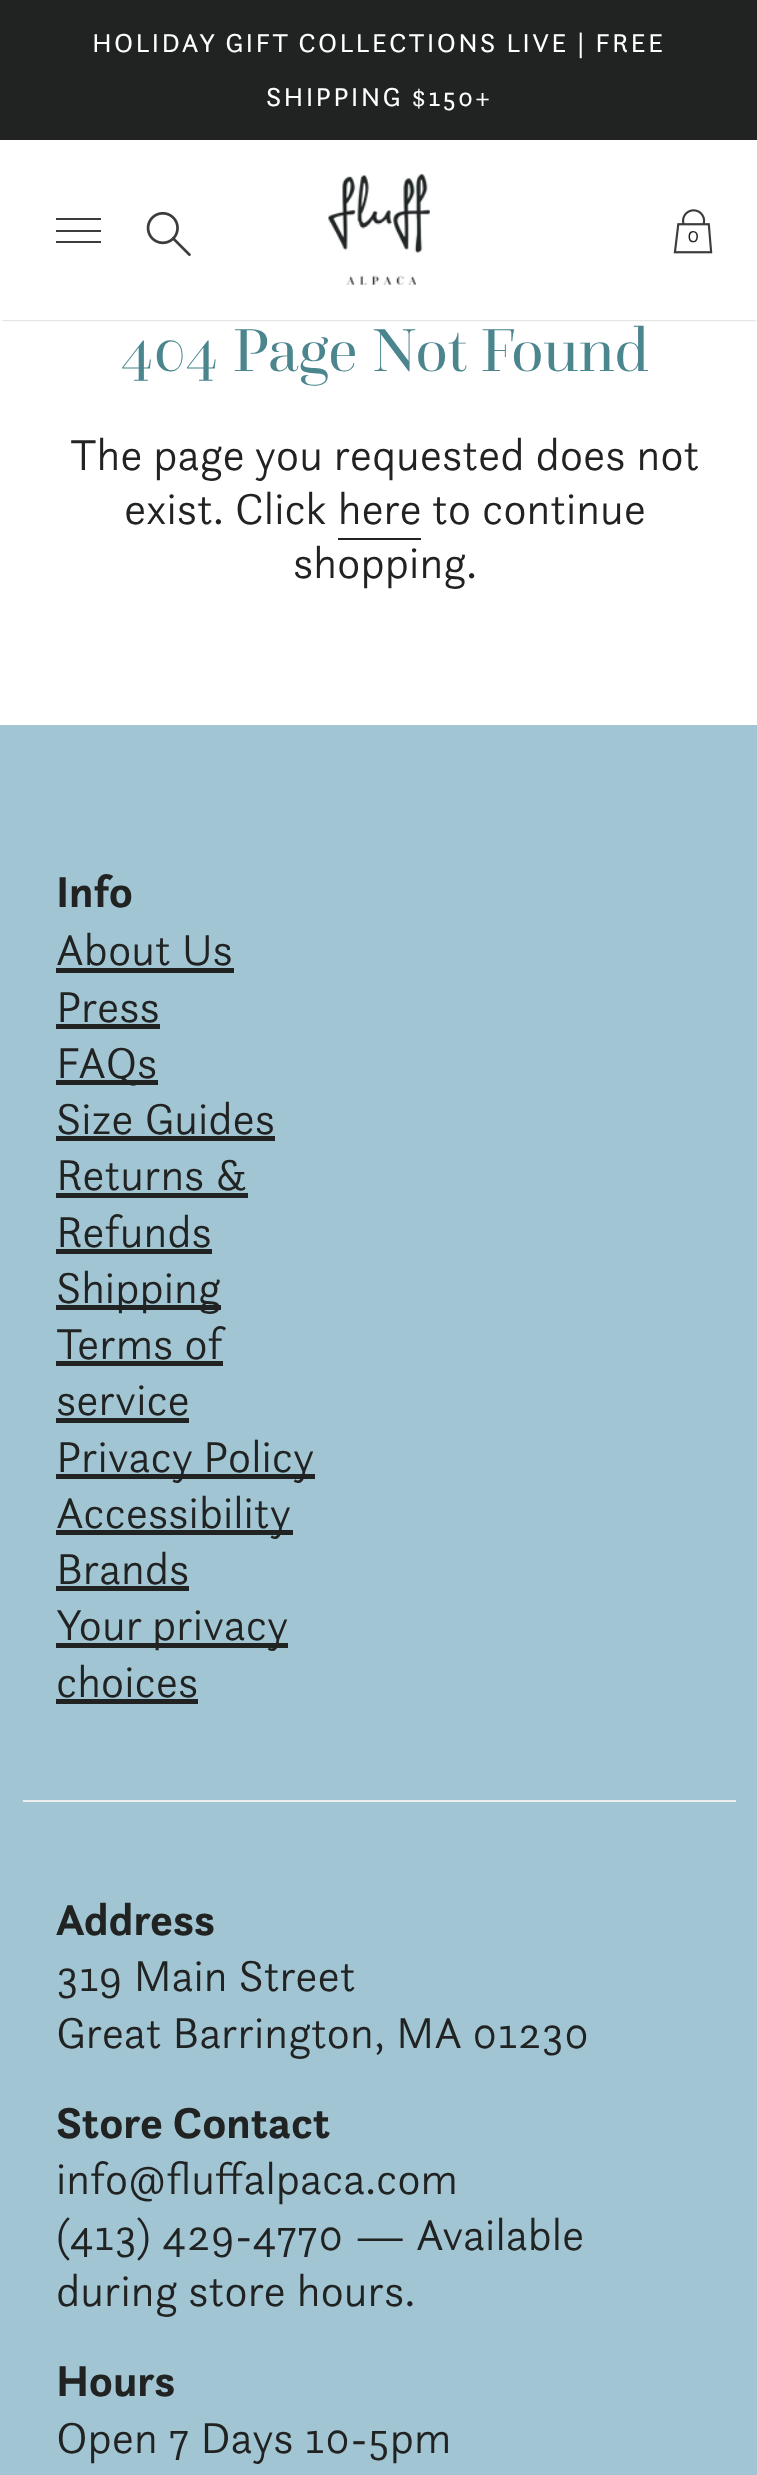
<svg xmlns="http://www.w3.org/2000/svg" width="757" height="2475">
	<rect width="100%" height="100%" fill="#FFFFFF" />
	<rect x="0" y="0" width="757" height="140" fill="#212322" />
	<g font-family="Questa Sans" font-size="27" letter-spacing="2.25" fill="#FFFFFF">
		<text x="92" y="52">HOLIDAY GIFT COLLECTIONS LIVE | FREE</text>
		<text x="266" y="106">SHIPPING $150+</text>
	</g>
	<rect x="2" y="144" width="754" height="176" fill="#000000" fill-opacity="0.3" filter="blur(1px)" />
	<rect x="0" y="142" width="757" height="178" fill="#FFFFFF" />
	<rect x="56" y="218" width="45" height="2" fill="#3A3D3C" />
	<rect x="56" y="230" width="45" height="2" fill="#3A3D3C" />
	<rect x="56" y="241" width="45" height="2" fill="#3A3D3C" />
	<image x="146" y="212" width="45" height="44" href="assets/img1.png" />
	<image x="328" y="174" width="102" height="111" href="assets/img2.png" />
	<image x="673" y="209" width="40" height="45" href="assets/img3.png" />
	<text x="687" y="242" font-family="Questa Sans" font-size="22" font-weight="300" fill="#212322">0</text>
	<text x="121" y="371" font-family="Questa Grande" font-size="63" fill="#4B858E">404 Page Not Found</text>
	<g font-family="Questa Sans" font-size="45" font-weight="300" fill="#212322">
		<text x="70" y="470">The page you requested does not</text>
		<text x="124" y="524">exist. Click here</text>
		<text x="432" y="524">to continue</text>
	</g>
	<rect x="338" y="538" width="83" height="2" fill="#212322" />
	<text x="293" y="578" font-family="Questa Sans" font-size="45" font-weight="300" fill="#212322">shopping.</text>
	<rect x="0" y="725" width="757" height="1750" fill="#A2C5D3" />
	<text x="56" y="907" font-family="Questa Sans" font-size="45" font-weight="700" fill="#212322">Info</text>
	<text x="56" y="965" font-family="Questa Sans" font-size="45" font-weight="300" fill="#212322">About Us</text>
	<rect x="56" y="968" width="178" height="5" fill="#212322" />
	<text x="56" y="1022" font-family="Questa Sans" font-size="45" font-weight="300" fill="#212322">Press</text>
	<rect x="56" y="1024" width="104" height="5" fill="#212322" />
	<rect x="56" y="1080" width="102" height="5" fill="#212322" />
	<g font-family="Questa Sans" font-size="45" font-weight="300" fill="#212322">
		<text x="56" y="1078">FAQs</text>
		<text x="56" y="1134">Size Guides</text>
	</g>
	<rect x="56" y="1136" width="219" height="5" fill="#212322" />
	<text x="56" y="1190" font-family="Questa Sans" font-size="45" font-weight="300" fill="#212322">Returns &amp;</text>
	<rect x="56" y="1193" width="192" height="5" fill="#212322" />
	<text x="56" y="1247" font-family="Questa Sans" font-size="45" font-weight="300" fill="#212322">Refunds</text>
	<rect x="56" y="1249" width="156" height="5" fill="#212322" />
	<rect x="56" y="1305" width="165" height="5" fill="#212322" />
	<g font-family="Questa Sans" font-size="45" font-weight="300" fill="#212322">
		<text x="56" y="1303">Shipping</text>
		<text x="56" y="1359">Terms of</text>
	</g>
	<rect x="56" y="1361" width="167" height="5" fill="#212322" />
	<text x="56" y="1415" font-family="Questa Sans" font-size="45" font-weight="300" fill="#212322">service</text>
	<rect x="56" y="1418" width="133" height="5" fill="#212322" />
	<rect x="56" y="1474" width="259" height="5" fill="#212322" />
	<text x="56" y="1472" font-family="Questa Sans" font-size="45" font-weight="300" fill="#212322">Privacy Policy</text>
	<rect x="56" y="1530" width="237" height="5" fill="#212322" />
	<g font-family="Questa Sans" font-size="45" font-weight="300" fill="#212322">
		<text x="56" y="1528">Accessibility</text>
		<text x="56" y="1584">Brands</text>
	</g>
	<rect x="56" y="1586" width="133" height="5" fill="#212322" />
	<rect x="56" y="1643" width="232" height="5" fill="#212322" />
	<g font-family="Questa Sans" font-size="45" font-weight="300" fill="#212322">
		<text x="56" y="1640">Your privacy</text>
		<text x="56" y="1697">choices</text>
	</g>
	<rect x="56" y="1699" width="142" height="5" fill="#212322" />
	<rect x="23" y="1800" width="713" height="2" fill="#EEEEEE" />
	<text x="56" y="1935" font-family="Questa Sans" font-size="45" font-weight="700" fill="#212322">Address</text>
	<g font-family="Questa Sans" font-size="45" font-weight="300" fill="#212322">
		<text x="56" y="1991">319 Main Street</text>
		<text x="56" y="2048">Great Barrington, MA 01230</text>
	</g>
	<text x="56" y="2138" font-family="Questa Sans" font-size="45" font-weight="700" fill="#212322">Store Contact</text>
	<g font-family="Questa Sans" font-size="45" font-weight="300" fill="#212322">
		<text x="56" y="2194">info@fluffalpaca.com</text>
		<text x="56" y="2250">(413) 429-4770 — Available</text>
		<text x="56" y="2306">during store hours.</text>
	</g>
	<text x="56" y="2396" font-family="Questa Sans" font-size="45" font-weight="700" fill="#212322">Hours</text>
	<text x="56" y="2453" font-family="Questa Sans" font-size="45" font-weight="300" fill="#212322">Open 7 Days 10-5pm</text>
</svg>
